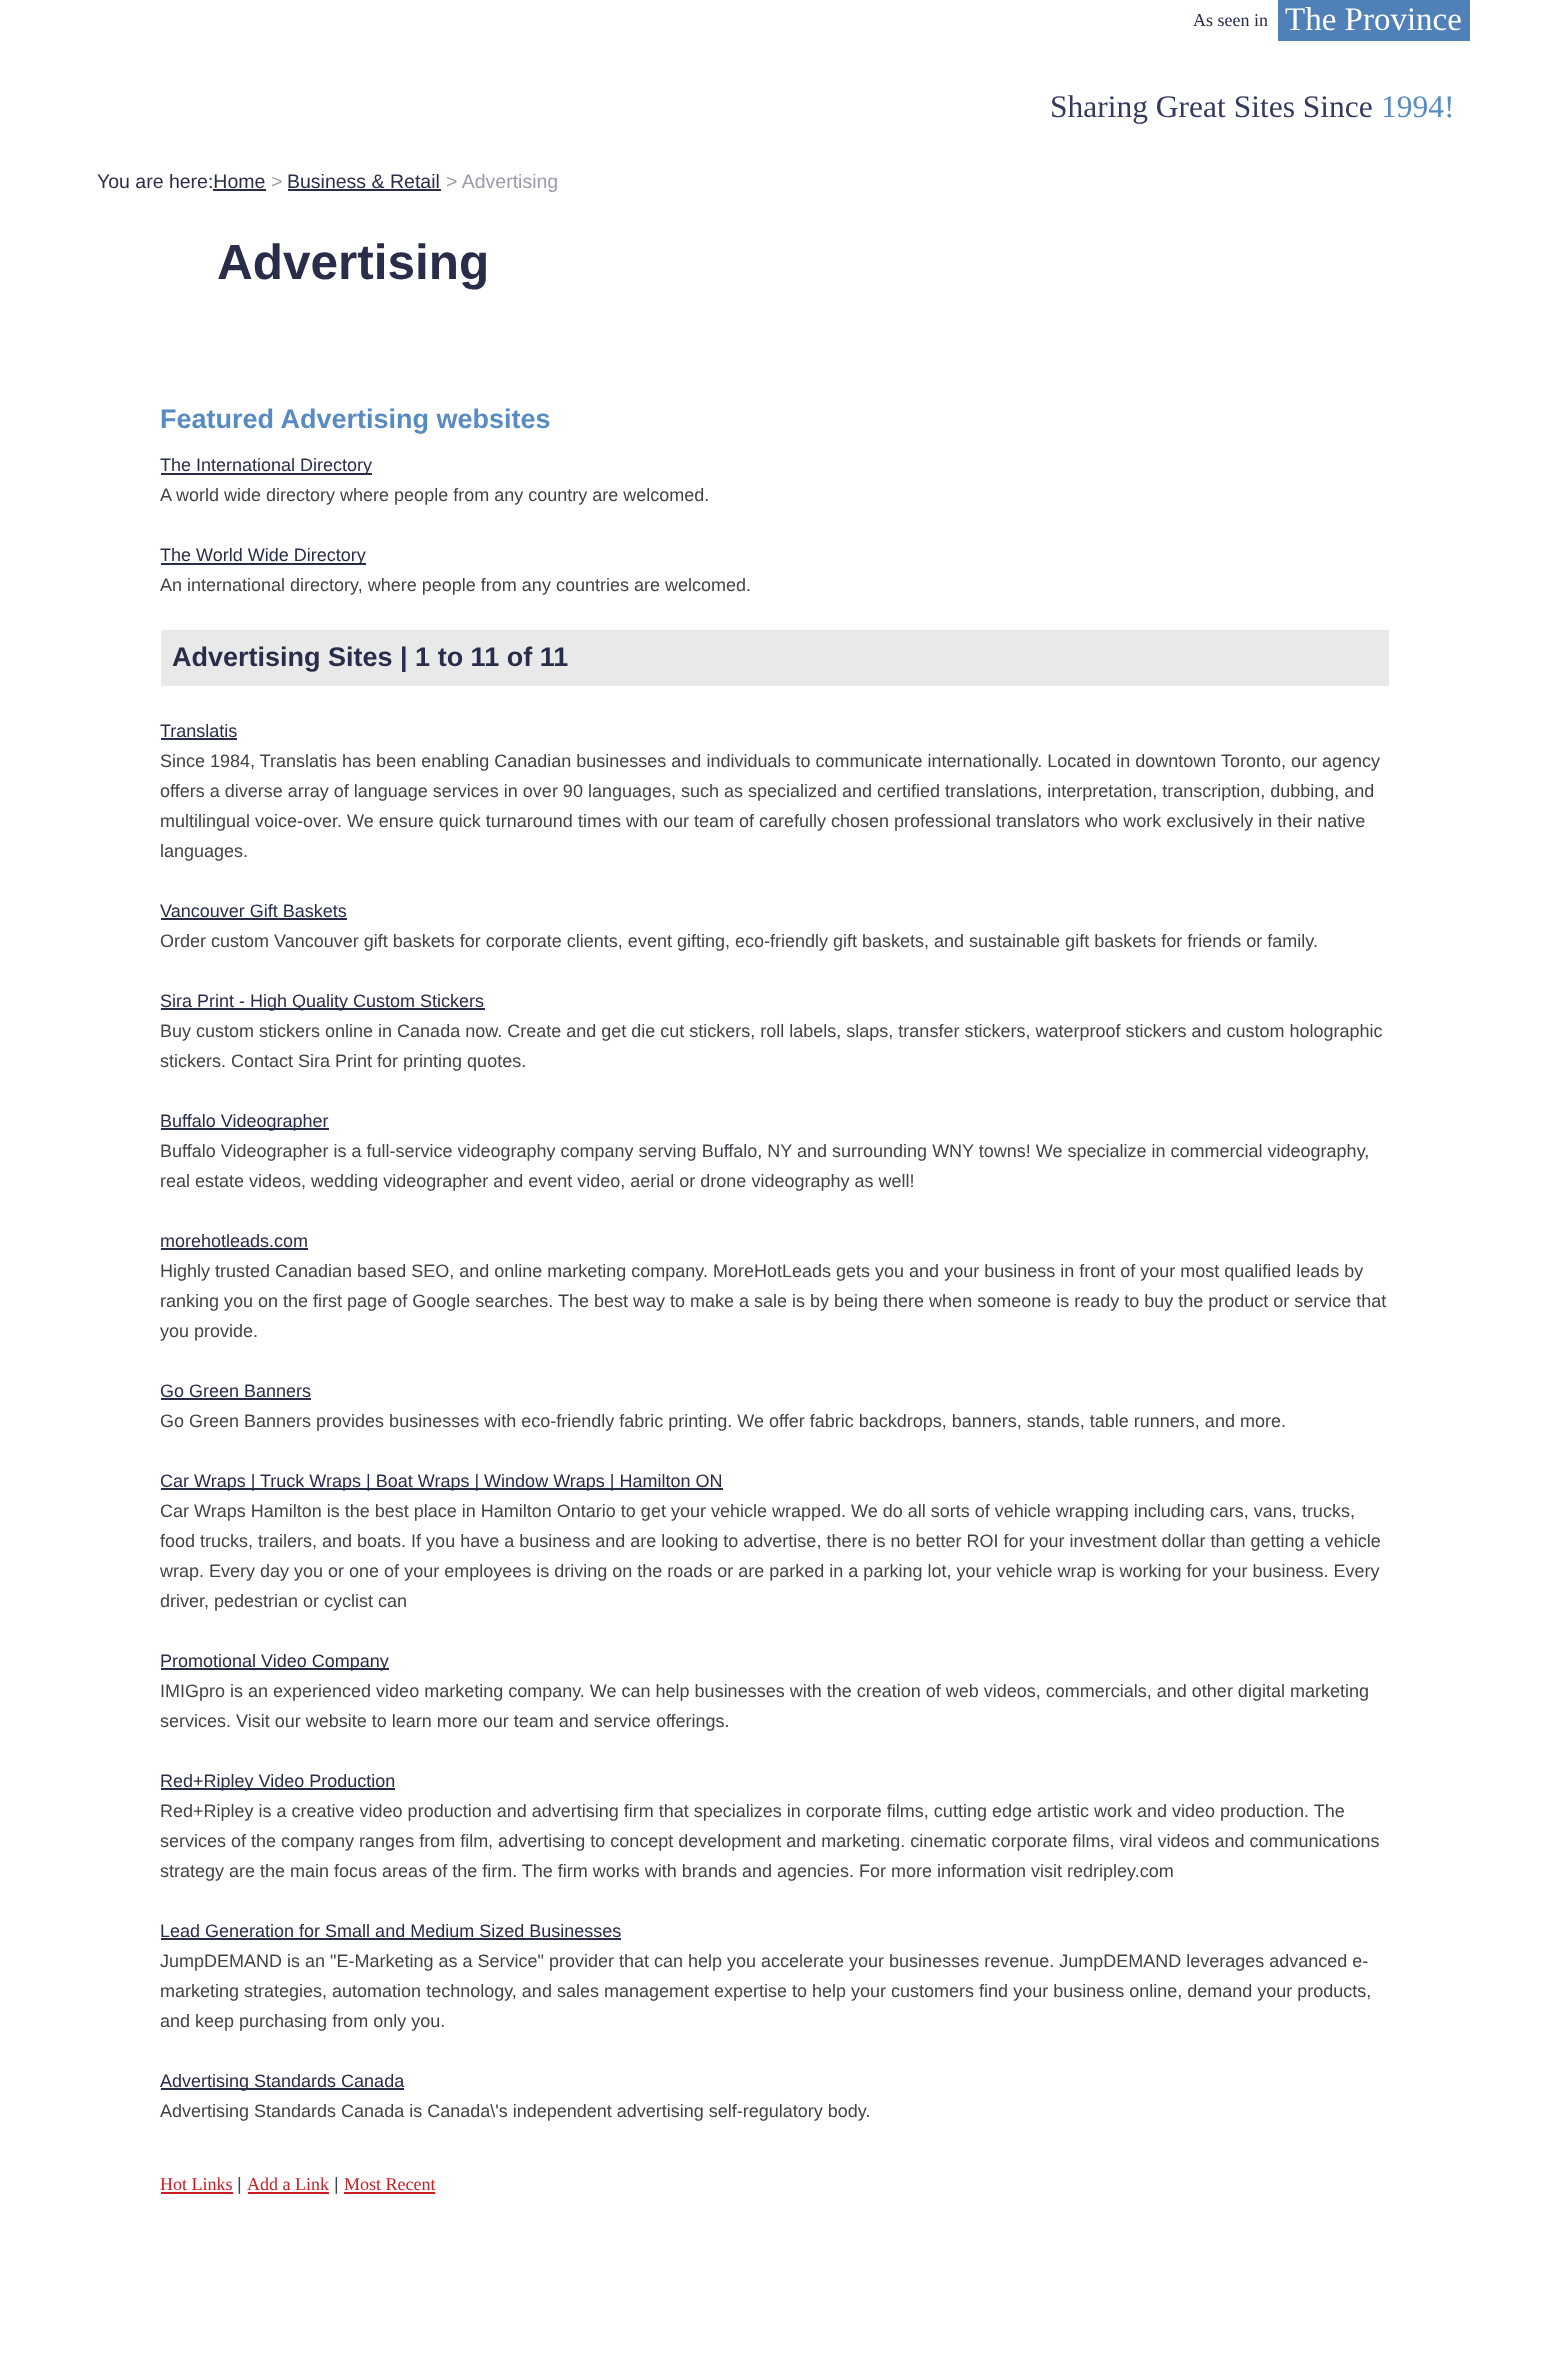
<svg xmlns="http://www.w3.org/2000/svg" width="1547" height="2366">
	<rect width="100%" height="100%" fill="#FFFFFF" />
	<rect x="1278" y="0" width="192" height="41" fill="#4F80B8" />
	<text x="1193" y="26" font-family="Liberation Serif" font-size="18" fill="#292D4A">As seen in</text>
	<text x="1285" y="30" font-family="Liberation Serif" font-size="33" fill="#FFFFFF">The Province</text>
	<text x="1050" y="117" font-family="Liberation Serif" font-size="31.5" fill="#34395E">Sharing Great Sites Since</text>
	<text x="1381" y="117" font-family="Liberation Serif" font-size="31.5" fill="#598BC3">1994!</text>
	<text x="97" y="188" font-family="Liberation Sans" font-size="19.5" fill="#292D4A">You are here:Home</text>
	<text x="271" y="188" font-family="Liberation Sans" font-size="19.5" fill="#989CAB">&gt;</text>
	<text x="287" y="188" font-family="Liberation Sans" font-size="19.5" fill="#292D4A">Business &amp; Retail</text>
	<rect x="288" y="189" width="153" height="2" fill="#292D4A" />
	<text x="446" y="188" font-family="Liberation Sans" font-size="19.5" fill="#989CAB">&gt; Advertising</text>
	<rect x="213" y="189" width="53" height="2" fill="#292D4A" />
	<text x="217" y="279" font-family="Liberation Sans" font-size="49.5" font-weight="700" fill="#292D4A">Advertising</text>
	<text x="160" y="428" font-family="Liberation Sans" font-size="27" font-weight="700" fill="#598BC3">Featured Advertising websites</text>
	<rect x="161" y="473" width="211" height="2" fill="#292D4A" />
	<text x="160" y="471" font-family="Liberation Sans" font-size="18" fill="#292D4A">The International Directory</text>
	<text x="160" y="501" font-family="Liberation Sans" font-size="18" fill="#464149">A world wide directory where people from any country are welcomed.</text>
	<rect x="161" y="563" width="205" height="2" fill="#292D4A" />
	<text x="160" y="561" font-family="Liberation Sans" font-size="18" fill="#292D4A">The World Wide Directory</text>
	<text x="160" y="591" font-family="Liberation Sans" font-size="18" fill="#464149">An international directory, where people from any countries are welcomed.</text>
	<rect x="161" y="630" width="1228" height="56" fill="#E9E9EA" />
	<text x="172" y="666" font-family="Liberation Sans" font-size="27" font-weight="700" fill="#292D4A">Advertising Sites | 1 to 11 of 11</text>
	<text x="160" y="737" font-family="Liberation Sans" font-size="18" fill="#292D4A">Translatis</text>
	<rect x="161" y="738" width="76" height="2" fill="#292D4A" />
	<g font-family="Liberation Sans" font-size="18" fill="#464149">
		<text x="160" y="767">Since 1984, Translatis has been enabling Canadian businesses and individuals to communicate internationally. Located in downtown Toronto, our agency</text>
		<text x="160" y="797">offers a diverse array of language services in over 90 languages, such as specialized and certified translations, interpretation, transcription, dubbing, and</text>
		<text x="160" y="827">multilingual voice-over. We ensure quick turnaround times with our team of carefully chosen professional translators who work exclusively in their native</text>
		<text x="160" y="857">languages.</text>
	</g>
	<text x="160" y="917" font-family="Liberation Sans" font-size="18" fill="#292D4A">Vancouver Gift Baskets</text>
	<rect x="161" y="918" width="186" height="2" fill="#292D4A" />
	<text x="160" y="947" font-family="Liberation Sans" font-size="18" fill="#464149">Order custom Vancouver gift baskets for corporate clients, event gifting, eco-friendly gift baskets, and sustainable gift baskets for friends or family.</text>
	<rect x="161" y="1008" width="324" height="2" fill="#292D4A" />
	<text x="160" y="1007" font-family="Liberation Sans" font-size="18" fill="#292D4A">Sira Print - High Quality Custom Stickers</text>
	<g font-family="Liberation Sans" font-size="18" fill="#464149">
		<text x="160" y="1037">Buy custom stickers online in Canada now. Create and get die cut stickers, roll labels, slaps, transfer stickers, waterproof stickers and custom holographic</text>
		<text x="160" y="1067">stickers. Contact Sira Print for printing quotes.</text>
	</g>
	<rect x="161" y="1128" width="168" height="2" fill="#292D4A" />
	<text x="160" y="1127" font-family="Liberation Sans" font-size="18" fill="#292D4A">Buffalo Videographer</text>
	<g font-family="Liberation Sans" font-size="18" fill="#464149">
		<text x="160" y="1157">Buffalo Videographer is a full-service videography company serving Buffalo, NY and surrounding WNY towns! We specialize in commercial videography,</text>
		<text x="160" y="1187">real estate videos, wedding videographer and event video, aerial or drone videography as well!</text>
	</g>
	<text x="160" y="1247" font-family="Liberation Sans" font-size="18" fill="#292D4A">morehotleads.com</text>
	<rect x="161" y="1248" width="147" height="2" fill="#292D4A" />
	<g font-family="Liberation Sans" font-size="18" fill="#464149">
		<text x="160" y="1277">Highly trusted Canadian based SEO, and online marketing company. MoreHotLeads gets you and your business in front of your most qualified leads by</text>
		<text x="160" y="1307">ranking you on the first page of Google searches. The best way to make a sale is by being there when someone is ready to buy the product or service that</text>
		<text x="160" y="1337">you provide.</text>
	</g>
	<text x="160" y="1397" font-family="Liberation Sans" font-size="18" fill="#292D4A">Go Green Banners</text>
	<rect x="161" y="1398" width="150" height="2" fill="#292D4A" />
	<text x="160" y="1427" font-family="Liberation Sans" font-size="18" fill="#464149">Go Green Banners provides businesses with eco-friendly fabric printing. We offer fabric backdrops, banners, stands, table runners, and more.</text>
	<rect x="161" y="1488" width="562" height="2" fill="#292D4A" />
	<text x="160" y="1487" font-family="Liberation Sans" font-size="18" fill="#292D4A">Car Wraps | Truck Wraps | Boat Wraps | Window Wraps | Hamilton ON</text>
	<g font-family="Liberation Sans" font-size="18" fill="#464149">
		<text x="160" y="1517">Car Wraps Hamilton is the best place in Hamilton Ontario to get your vehicle wrapped. We do all sorts of vehicle wrapping including cars, vans, trucks,</text>
		<text x="160" y="1547">food trucks, trailers, and boats. If you have a business and are looking to advertise, there is no better ROI for your investment dollar than getting a vehicle</text>
		<text x="160" y="1577">wrap. Every day you or one of your employees is driving on the roads or are parked in a parking lot, your vehicle wrap is working for your business. Every</text>
		<text x="160" y="1607">driver, pedestrian or cyclist can</text>
	</g>
	<rect x="161" y="1668" width="228" height="2" fill="#292D4A" />
	<text x="160" y="1667" font-family="Liberation Sans" font-size="18" fill="#292D4A">Promotional Video Company</text>
	<g font-family="Liberation Sans" font-size="18" fill="#464149">
		<text x="160" y="1697">IMIGpro is an experienced video marketing company. We can help businesses with the creation of web videos, commercials, and other digital marketing</text>
		<text x="160" y="1727">services. Visit our website to learn more our team and service offerings.</text>
	</g>
	<rect x="161" y="1788" width="234" height="2" fill="#292D4A" />
	<text x="160" y="1787" font-family="Liberation Sans" font-size="18" fill="#292D4A">Red+Ripley Video Production</text>
	<g font-family="Liberation Sans" font-size="18" fill="#464149">
		<text x="160" y="1817">Red+Ripley is a creative video production and advertising firm that specializes in corporate films, cutting edge artistic work and video production. The</text>
		<text x="160" y="1847">services of the company ranges from film, advertising to concept development and marketing. cinematic corporate films, viral videos and communications</text>
		<text x="160" y="1877">strategy are the main focus areas of the firm. The firm works with brands and agencies. For more information visit redripley.com</text>
	</g>
	<text x="160" y="1937" font-family="Liberation Sans" font-size="18" fill="#292D4A">Lead Generation for Small and Medium Sized Businesses</text>
	<rect x="161" y="1938" width="460" height="2" fill="#292D4A" />
	<g font-family="Liberation Sans" font-size="18" fill="#464149">
		<text x="160" y="1967">JumpDEMAND is an "E-Marketing as a Service" provider that can help you accelerate your businesses revenue. JumpDEMAND leverages advanced e-</text>
		<text x="160" y="1997">marketing strategies, automation technology, and sales management expertise to help your customers find your business online, demand your products,</text>
		<text x="160" y="2027">and keep purchasing from only you.</text>
	</g>
	<rect x="161" y="2088" width="243" height="2" fill="#292D4A" />
	<text x="160" y="2087" font-family="Liberation Sans" font-size="18" fill="#292D4A">Advertising Standards Canada</text>
	<text x="160" y="2117" font-family="Liberation Sans" font-size="18" fill="#464149">Advertising Standards Canada is Canada\'s independent advertising self-regulatory body.</text>
	<text x="160" y="2190" font-family="Liberation Serif" font-size="18" fill="#CB1C22">Hot Links</text>
	<rect x="161" y="2192" width="72" height="2" fill="#CB1C22" />
	<text x="237" y="2190" font-family="Liberation Sans" font-size="18" fill="#464149">|</text>
	<text x="247" y="2190" font-family="Liberation Serif" font-size="18" fill="#CB1C22">Add a Link</text>
	<rect x="248" y="2192" width="81" height="2" fill="#CB1C22" />
	<text x="334" y="2190" font-family="Liberation Sans" font-size="18" fill="#464149">|</text>
	<text x="344" y="2190" font-family="Liberation Serif" font-size="18" fill="#CB1C22">Most Recent</text>
	<rect x="344" y="2192" width="91" height="2" fill="#CB1C22" />
</svg>
